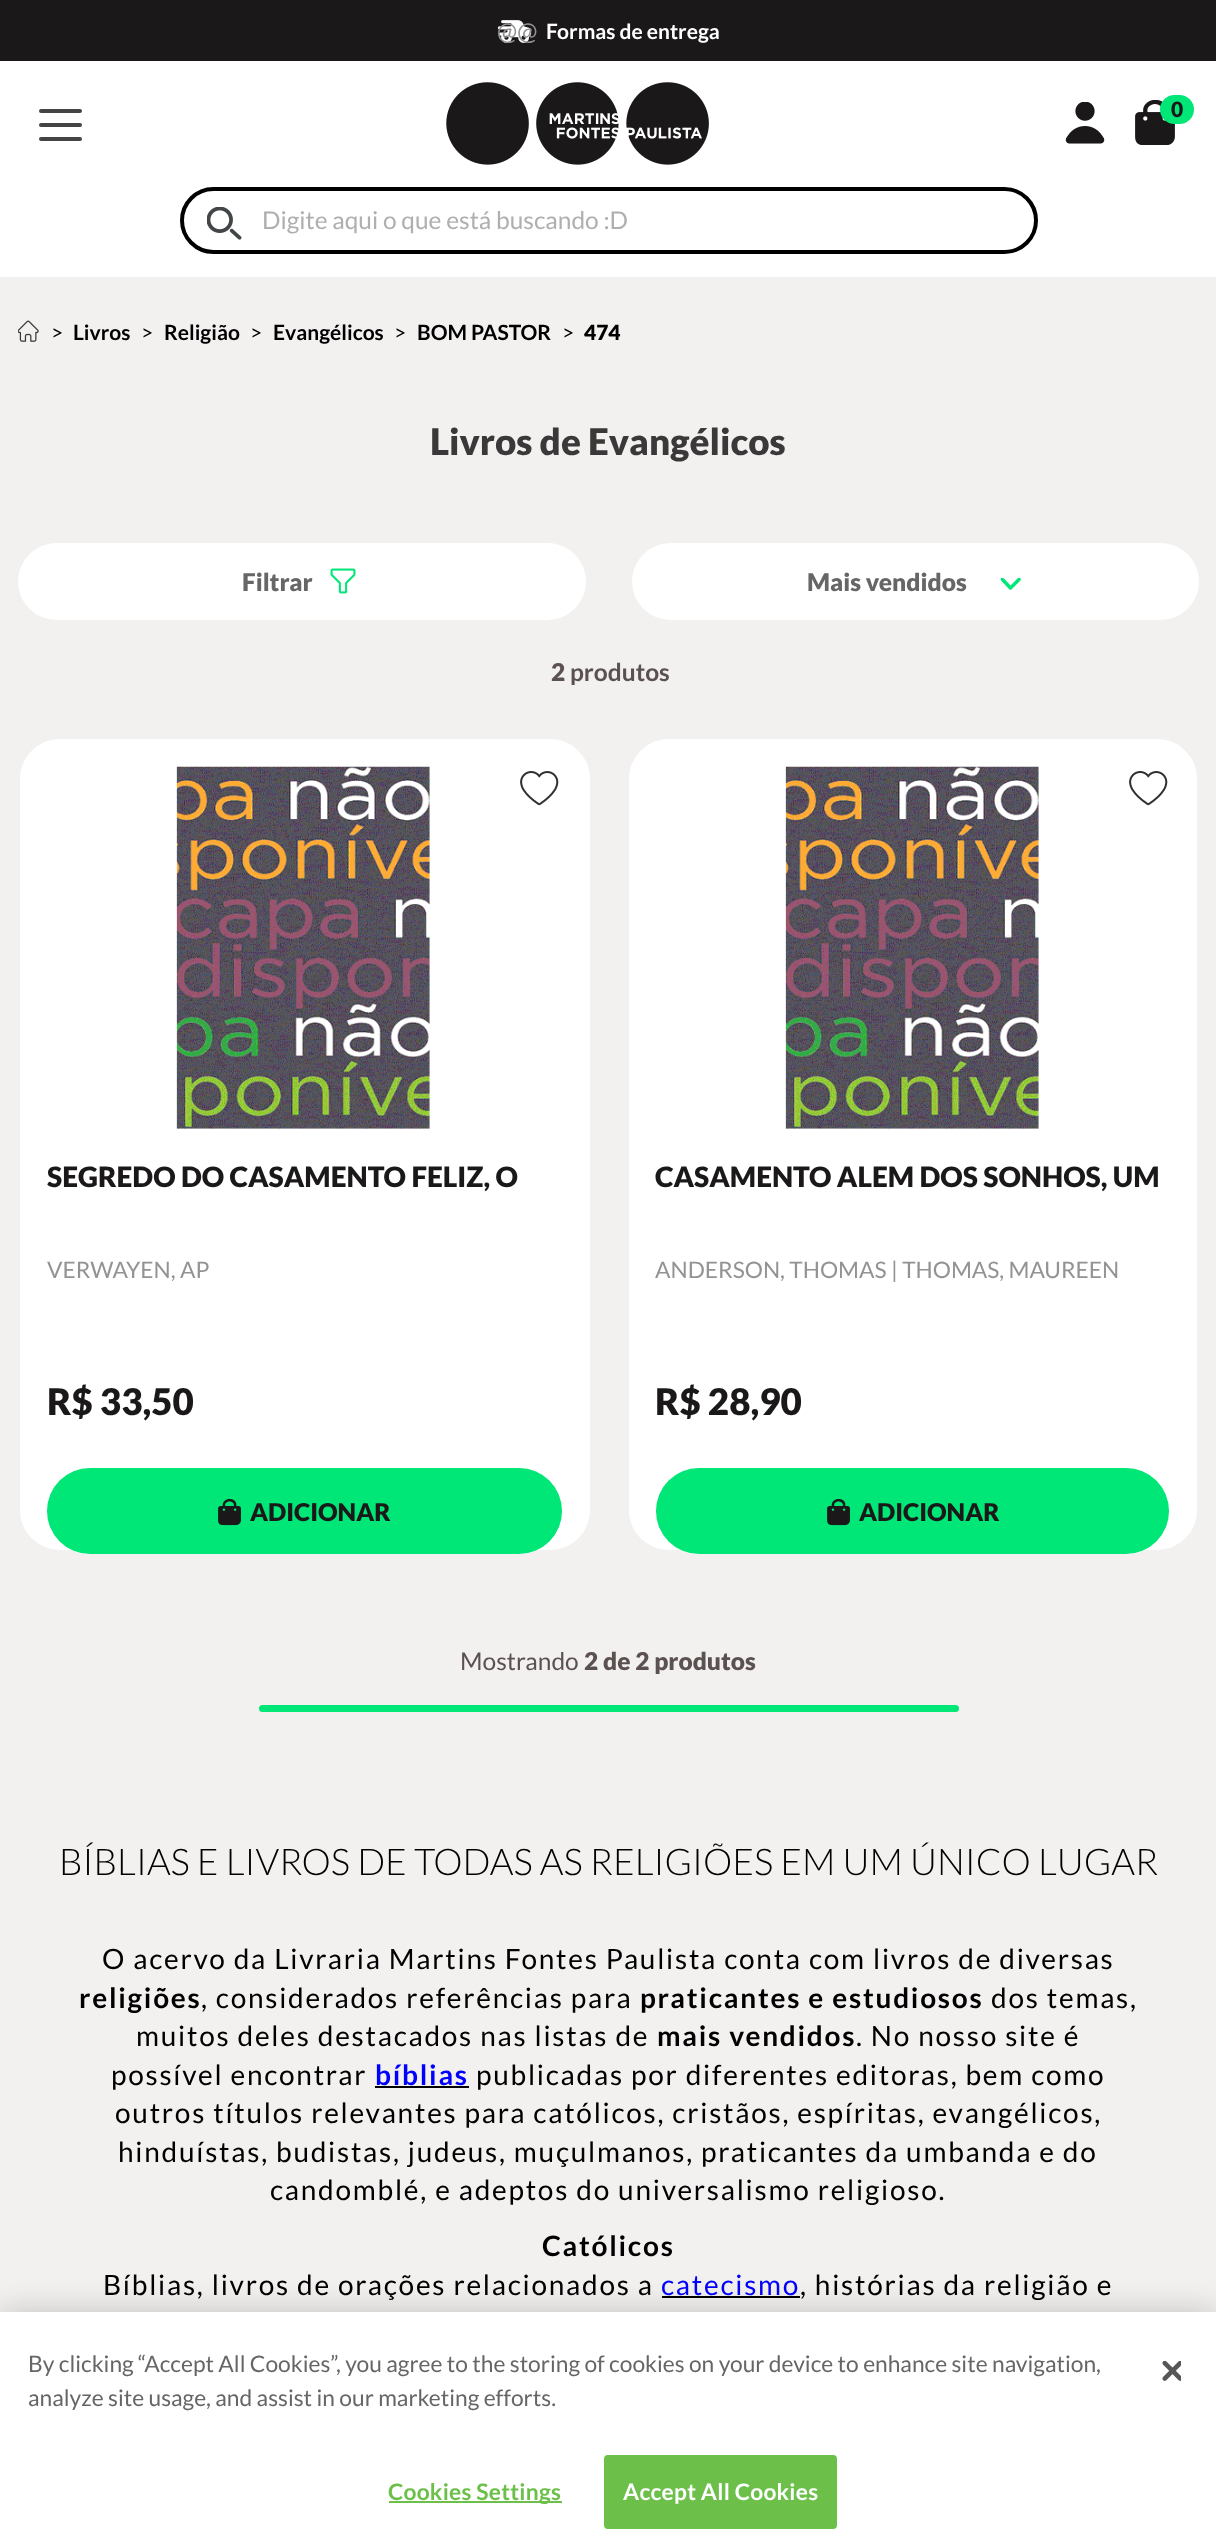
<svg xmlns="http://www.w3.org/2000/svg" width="1216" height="2546">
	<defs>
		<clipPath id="clip1"><rect x="999" y="578" width="23" height="12" /></clipPath>
	</defs>
	<rect width="100%" height="100%" fill="#F3F0F0" />
	<rect x="0" y="61" width="1216" height="216" fill="#FFFFFF" />
	<rect x="0" y="0" width="1216" height="61" fill="#1A1818" />
	<image x="497" y="20" width="35" height="23" href="assets/img1.png" />
	<text x="497" y="40" font-family="Lato" font-size="24.5" fill="#949292">@@</text>
	<text x="546" y="39" font-family="Lato" font-size="21" font-weight="700" fill="#FFFFFF">Formas de entrega</text>
	<rect x="39" y="123" width="43" height="4" rx="2" fill="#444444" />
	<rect x="39" y="109" width="43" height="4" rx="2" fill="#444444" />
	<rect x="39" y="137" width="43" height="4" rx="2" fill="#444444" />
	<image x="446" y="82" width="263" height="83" href="assets/img2.png" />
	<image x="1065" y="102" width="40" height="42" href="assets/img3.png" />
	<image x="1135" y="100" width="40" height="45" href="assets/img4.png" />
	<rect x="1160" y="95" width="34" height="29" rx="14.5" fill="#00E677" />
	<text x="1171" y="117" font-family="Lato" font-size="21" font-weight="900" fill="#1A1818">0</text>
	<rect x="182" y="189" width="854" height="63" rx="31.5" fill="none" stroke="#000000" stroke-width="4" />
	<image x="207" y="207" width="35" height="33" href="assets/img5.png" />
	<text x="262" y="229" font-family="Lato" font-size="24.5" fill="#AFAFAF">Digite aqui o que está buscando :D</text>
	<image x="18" y="320" width="21" height="22" href="assets/img6.png" />
	<text x="51" y="340" font-family="Lato" font-size="21" fill="#000000">&gt;</text>
	<text x="73" y="340" font-family="Lato" font-size="21" font-weight="700" fill="#000000">Livros</text>
	<text x="141" y="340" font-family="Lato" font-size="21" fill="#000000">&gt;</text>
	<text x="164" y="340" font-family="Lato" font-size="21" font-weight="700" fill="#000000">Religião</text>
	<text x="250" y="340" font-family="Lato" font-size="21" fill="#000000">&gt;</text>
	<text x="273" y="340" font-family="Lato" font-size="21" font-weight="700" fill="#000000">Evangélicos</text>
	<text x="394" y="340" font-family="Lato" font-size="21" fill="#000000">&gt;</text>
	<text x="417" y="340" font-family="Lato" font-size="21" font-weight="700" fill="#000000">BOM PASTOR</text>
	<text x="562" y="340" font-family="Lato" font-size="21" fill="#000000">&gt;</text>
	<text x="584" y="340" font-family="Lato" font-size="21" font-weight="900" fill="#000000">474</text>
	<text x="430" y="455" font-family="Lato" font-size="36.75" font-weight="900" fill="#3A3838">Livros de Evangélicos</text>
	<rect x="18" y="543" width="568" height="77" rx="38.5" fill="#FFFFFF" />
	<text x="242" y="591" font-family="Lato" font-size="24.5" font-weight="900" fill="#666666">Filtrar</text>
	<image x="330" y="568" width="26" height="26" href="assets/img7.png" />
	<rect x="632" y="543" width="567" height="77" rx="38.5" fill="#FFFFFF" />
	<text x="807" y="591" font-family="Lato" font-size="24.5" font-weight="900" fill="#666666">Mais vendidos</text>
	<g clip-path="url(#clip1)">
		<path d="M1002.5 579.5L1010.5 588L1019 579.5" fill="none" stroke="#00E677" stroke-width="3.5" stroke-linecap="round" stroke-linejoin="round" />
	</g>
	<text x="551" y="681" font-family="Lato" font-size="24.5" font-weight="900" fill="#5C5151">2</text>
	<text x="570" y="681" font-family="Lato" font-size="24.5" font-weight="700" fill="#5C5151">produtos</text>
	<rect x="19" y="738" width="572" height="813" rx="41" fill="#FFFFFF" stroke="#F3F0F0" stroke-width="2" />
	<image x="176" y="766" width="254" height="363" href="assets/img8.png" />
	<image x="520" y="771" width="39" height="35" href="assets/img9.png" />
	<text x="47" y="1187" font-family="Lato" font-size="28" font-weight="900" fill="#1A1818">SEGREDO DO CASAMENTO FELIZ, O</text>
	<text x="47" y="1278" font-family="Lato" font-size="22.75" fill="#949292">VERWAYEN, AP</text>
	<text x="47" y="1415" font-family="Lato" font-size="36.75" font-weight="900" fill="#1A1818">R$ 33,50</text>
	<path d="M47 1468H562V1512C562 1535 543 1554 520 1554H89C66 1554 47 1535 47 1512Z" fill="#FFFFFF" />
	<rect x="47" y="1468" width="515" height="86" rx="43" fill="#00E677" />
	<image x="218" y="1498" width="23" height="28" href="assets/img10.png" />
	<text x="250" y="1521" font-family="Lato" font-size="24.5" font-weight="900" fill="#1A1818">ADICIONAR</text>
	<rect x="628" y="738" width="570" height="813" rx="41" fill="#FFFFFF" stroke="#F3F0F0" stroke-width="2" />
	<image x="785" y="766" width="254" height="363" href="assets/img11.png" />
	<image x="1129" y="771" width="39" height="35" href="assets/img9.png" />
	<text x="655" y="1187" font-family="Lato" font-size="28" font-weight="900" fill="#1A1818">CASAMENTO ALEM DOS SONHOS, UM</text>
	<text x="655" y="1278" font-family="Lato" font-size="22.75" fill="#949292">ANDERSON, THOMAS | THOMAS, MAUREEN</text>
	<text x="655" y="1415" font-family="Lato" font-size="36.75" font-weight="900" fill="#1A1818">R$ 28,90</text>
	<path d="M656 1468H1169V1512C1169 1535 1150 1554 1127 1554H698C675 1554 656 1535 656 1512Z" fill="#FFFFFF" />
	<rect x="656" y="1468" width="513" height="86" rx="43" fill="#00E677" />
	<image x="827" y="1498" width="23" height="28" href="assets/img10.png" />
	<text x="859" y="1521" font-family="Lato" font-size="24.5" font-weight="900" fill="#1A1818">ADICIONAR</text>
	<text x="460" y="1670" font-family="Lato" font-size="24.5" fill="#5C5151">Mostrando</text>
	<text x="584" y="1670" font-family="Lato" font-size="24.5" font-weight="900" fill="#5C5151">2 de 2 produtos</text>
	<rect x="259" y="1705" width="700" height="7" rx="3.5" fill="#00E677" />
	<text x="59" y="1875" font-family="Lato" font-size="36.75" font-weight="300" fill="#000000">BÍBLIAS E LIVROS DE TODAS AS RELIGIÕES EM UM ÚNICO LUGAR</text>
	<text x="102" y="1969" font-family="Lato" font-size="28" letter-spacing="1.75" fill="#000000">O acervo da Livraria Martins Fontes Paulista conta com livros de diversas</text>
	<text x="79" y="2008" font-family="Lato" font-size="28" font-weight="700" letter-spacing="1.75" fill="#000000">religiões</text>
	<text x="201" y="2008" font-family="Lato" font-size="28" letter-spacing="1.75" fill="#000000">, considerados referências para</text>
	<text x="640" y="2008" font-family="Lato" font-size="28" font-weight="700" letter-spacing="1.75" fill="#000000">praticantes e estudiosos</text>
	<g font-family="Lato" font-size="28" letter-spacing="1.75" fill="#000000">
		<text x="991" y="2008">dos temas,</text>
		<text x="136" y="2046">muitos deles destacados nas listas de</text>
	</g>
	<text x="657" y="2046" font-family="Lato" font-size="28" font-weight="700" letter-spacing="1.75" fill="#000000">mais vendidos</text>
	<g font-family="Lato" font-size="28" letter-spacing="1.75" fill="#000000">
		<text x="856" y="2046">. No nosso site é</text>
		<text x="111" y="2085">possível encontrar</text>
	</g>
	<text x="375" y="2085" font-family="Lato" font-size="28" font-weight="700" letter-spacing="1.75" fill="#0000FE">bíblias</text>
	<rect x="375" y="2086" width="94" height="2" fill="#000000" />
	<g font-family="Lato" font-size="28" letter-spacing="1.75" fill="#000000">
		<text x="476" y="2085">publicadas por diferentes editoras, bem como</text>
		<text x="115" y="2123">outros títulos relevantes para católicos, cristãos, espíritas, evangélicos,</text>
		<text x="118" y="2162">hinduístas, budistas, judeus, muçulmanos, praticantes da umbanda e do</text>
		<text x="270" y="2200">candomblé, e adeptos do universalismo religioso.</text>
	</g>
	<text x="542" y="2256" font-family="Lato" font-size="28" font-weight="700" letter-spacing="1.75" fill="#000000">Católicos</text>
	<text x="103" y="2295" font-family="Lato" font-size="28" letter-spacing="1.75" fill="#000000">Bíblias, livros de orações relacionados a</text>
	<text x="661" y="2295" font-family="Lato" font-size="28" letter-spacing="1.75" fill="#0000FE">catecismo</text>
	<rect x="662" y="2296" width="138" height="2" fill="#000000" />
	<text x="800" y="2295" font-family="Lato" font-size="28" letter-spacing="1.75" fill="#000000">, histórias da religião e</text>
	<rect x="0" y="2312" width="1216" height="234" fill="#000000" fill-opacity="0.2" filter="blur(16px)" />
	<rect x="0" y="2312" width="1216" height="234" fill="#FFFFFF" />
	<g font-family="Lato" font-size="22.75" fill="#666666">
		<text x="28" y="2372">By clicking “Accept All Cookies”, you agree to the storing of cookies on your device to enhance site navigation,</text>
		<text x="28" y="2406">analyze site usage, and assist in our marketing efforts.</text>
	</g>
	<image x="1162" y="2361" width="19" height="20" href="assets/img12.png" />
	<rect x="389" y="2501" width="173" height="2" fill="#6CC04A" />
	<text x="388" y="2500" font-family="Lato" font-size="22.75" font-weight="700" letter-spacing="0.25" fill="#6CC04A">Cookies Settings</text>
	<rect x="605" y="2456" width="231" height="72" rx="3" fill="#6CC04A" stroke="#6CC04A" stroke-width="2" />
	<text x="623" y="2500" font-family="Lato" font-size="22.75" font-weight="700" letter-spacing="0.25" fill="#FFFFFF">Accept All Cookies</text>
</svg>
